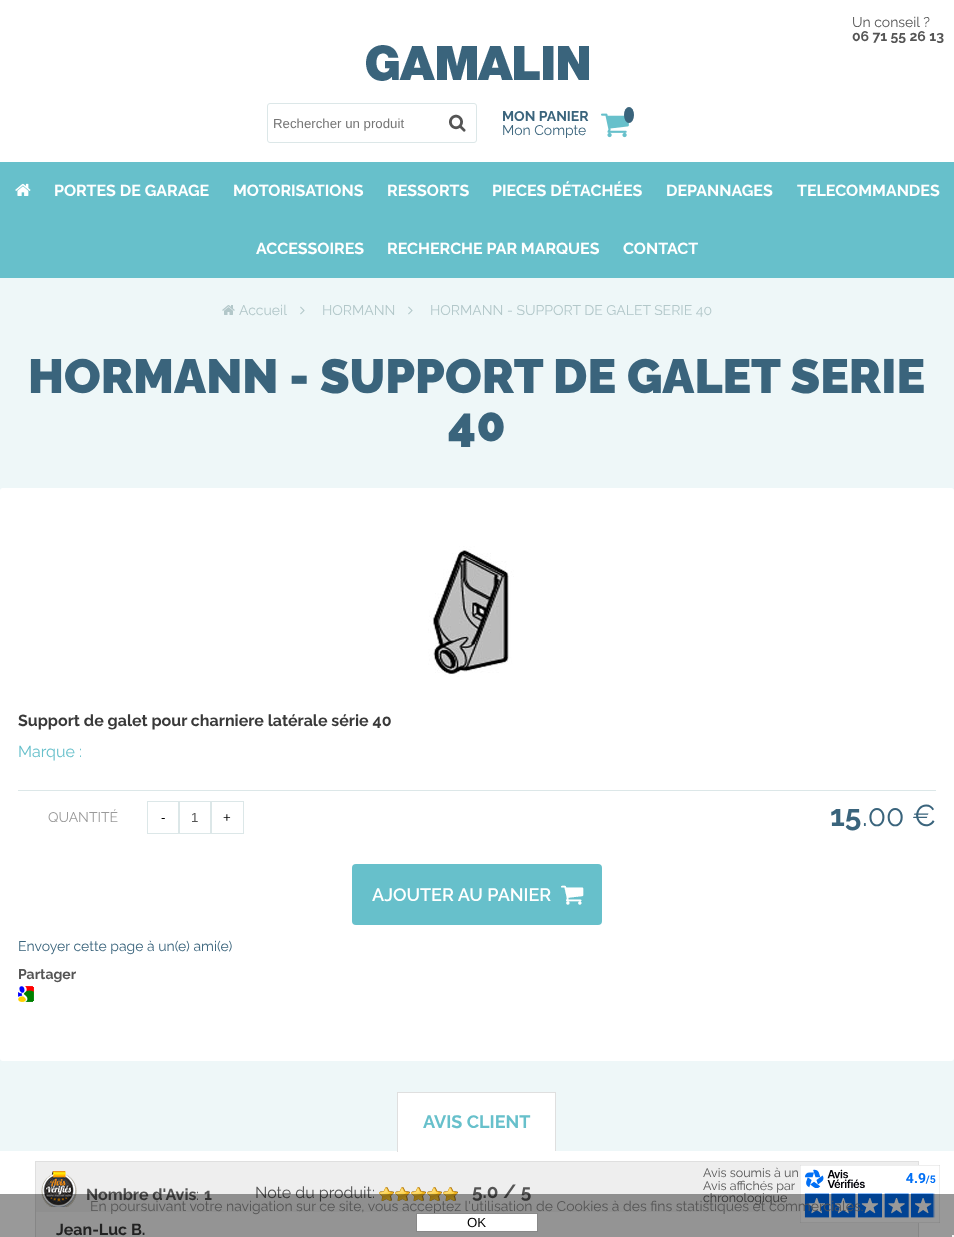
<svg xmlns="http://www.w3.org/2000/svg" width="954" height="1237">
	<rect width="100%" height="100%" fill="#EEF7F8" />
	<rect x="0" y="0" width="954" height="162" fill="#FFFFFF" />
	<text x="852" y="27" font-family="Raleway" font-size="14" fill="#555555">Un conseil ?</text>
	<text x="852" y="41" font-family="Raleway" font-size="14" font-weight="700" fill="#555555">06 71 55 26 13</text>
	<image x="366" y="45" width="223" height="36" href="assets/img1.png" />
	<rect x="267.5" y="103.5" width="209" height="39" rx="2.5" fill="none" stroke="#DCE7E8" />
	<text x="273" y="128" font-family="Liberation Sans" font-size="13.25" fill="#757575">Rechercher un produit</text>
	<image x="449" y="114" width="17" height="18" href="assets/img2.png" />
	<text x="502" y="121" font-family="Raleway" font-size="14" font-weight="700" fill="#3A647C">MON PANIER</text>
	<image x="601" y="113" width="28" height="25" href="assets/img3.png" />
	<ellipse cx="629" cy="115" rx="5" ry="8" fill="#3A647C" />
	<text x="502" y="135" font-family="Raleway" font-size="14" fill="#3A647C">Mon Compte</text>
	<rect x="0" y="162" width="954" height="116" fill="#67C0CB" />
	<image x="15" y="183" width="16" height="13" href="assets/img4.png" />
	<g font-family="Raleway" font-size="16" font-weight="700" fill="#FFFFFF">
		<text x="54" y="196">PORTES DE GARAGE</text>
		<text x="233" y="196">MOTORISATIONS</text>
		<text x="387" y="196">RESSORTS</text>
		<text x="492" y="196">PIECES DÉTACHÉES</text>
		<text x="666" y="196">DEPANNAGES</text>
		<text x="797" y="196">TELECOMMANDES</text>
		<text x="256" y="254">ACCESSOIRES</text>
		<text x="387" y="254">RECHERCHE PAR MARQUES</text>
		<text x="623" y="254">CONTACT</text>
	</g>
	<image x="222" y="305" width="13" height="10" href="assets/img5.png" />
	<text x="239" y="315" font-family="Raleway" font-size="14" fill="#B2C7C9">Accueil</text>
	<image x="300" y="306" width="5" height="9" href="assets/img6.png" />
	<text x="322" y="315" font-family="Raleway" font-size="14" fill="#B2C7C9">HORMANN</text>
	<image x="408" y="306" width="5" height="9" href="assets/img6.png" />
	<text x="430" y="315" font-family="Raleway" font-size="14" fill="#B2C7C9">HORMANN - SUPPORT DE GALET SERIE 40</text>
	<g font-family="Raleway" font-size="48" font-weight="900" fill="#3A647C">
		<text x="28" y="393">HORMANN - SUPPORT DE GALET SERIE</text>
		<text x="448" y="441">40</text>
	</g>
	<rect x="0" y="488" width="954" height="573" rx="3" fill="#FFFFFF" />
	<image x="428" y="546" width="86" height="131" href="assets/img7.png" />
	<text x="18" y="726" font-family="Raleway" font-size="16" font-weight="700" fill="#393939">Support de galet pour charniere latérale série 40</text>
	<text x="18" y="757" font-family="Raleway" font-size="16" fill="#67C0CB">Marque :</text>
	<rect x="18" y="790" width="918" height="1" fill="#DCE7E8" />
	<text x="48" y="822" font-family="Raleway" font-size="14" fill="#9A9A9A">QUANTITÉ</text>
	<rect x="178.5" y="801.5" width="32" height="32" fill="none" stroke="#DCE7E8" />
	<rect x="147.5" y="801.5" width="32" height="32" fill="none" stroke="#DCE7E8" />
	<text x="161" y="822" font-family="Liberation Sans" font-size="13.25" fill="#000000">-</text>
	<text x="191" y="822" font-family="Liberation Sans" font-size="13.25" fill="#555555">1</text>
	<rect x="211.5" y="801.5" width="32" height="32" fill="none" stroke="#DCE7E8" />
	<text x="223" y="822" font-family="Liberation Sans" font-size="13.25" fill="#000000">+</text>
	<rect x="352" y="864" width="250" height="61" rx="4" fill="#67C0CB" />
	<image x="561" y="885" width="23" height="20" href="assets/img8.png" />
	<text x="372" y="901" font-family="Raleway" font-size="18" font-weight="600" fill="#FFFFFF">AJOUTER AU PANIER</text>
	<text x="830" y="826" font-family="Raleway" font-size="30" font-weight="700" fill="#3A647C">15</text>
	<text x="862" y="826" font-family="Raleway" font-size="30" fill="#3A647C">.00 €</text>
	<text x="18" y="951" font-family="Raleway" font-size="14" fill="#3A647C">Envoyer cette page à un(e) ami(e)</text>
	<text x="18" y="979" font-family="Raleway" font-size="14" font-weight="700" fill="#555555">Partager</text>
	<image x="18" y="986" width="16" height="16" href="assets/img9.png" />
	<rect x="398" y="1093" width="157" height="58" fill="#FFFFFF" />
	<rect x="397" y="1092" width="159" height="1" fill="#DFDFDF" />
	<rect x="0" y="1151" width="954" height="86" fill="#FFFFFF" />
	<rect x="555" y="1092" width="1" height="60" fill="#DFDFDF" />
	<rect x="555" y="1151" width="1" height="1" fill="#FFFFFF" />
	<rect x="397" y="1092" width="1" height="60" fill="#DFDFDF" />
	<text x="423" y="1128" font-family="Raleway" font-size="18" font-weight="700" fill="#67C0CB">AVIS CLIENT</text>
	<rect x="36" y="1212" width="882" height="25" fill="#F7F7F7" />
	<rect x="35.5" y="1161.5" width="883" height="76" fill="none" stroke="#DFDFDF" />
	<rect x="36" y="1162" width="882" height="50" fill="#EEEEEE" />
	<image x="41" y="1171" width="36" height="36" href="assets/img10.png" />
	<text x="86" y="1200" font-family="Raleway" font-size="16" font-weight="700" fill="#555555">Nombre d'Avis</text>
	<text x="196" y="1200" font-family="Raleway" font-size="16" fill="#555555">:</text>
	<text x="204" y="1200" font-family="Raleway" font-size="16" font-weight="700" fill="#555555">1</text>
	<text x="255" y="1198" font-family="Raleway" font-size="16" fill="#555555">Note du produit:</text>
	<image x="379" y="1187" width="79" height="14" href="assets/img11.png" />
	<image x="379" y="1187" width="79" height="14" href="assets/img12.png" />
	<text x="472" y="1198" font-family="Raleway" font-size="19" font-weight="700" fill="#555555">5.0 / 5</text>
	<g font-family="Raleway" font-size="12.5" fill="#555555">
		<text x="703" y="1177">Avis soumis à un</text>
		<text x="703" y="1190">Avis affichés par</text>
		<text x="703" y="1202">chronologique</text>
	</g>
	<text x="56" y="1235" font-family="Raleway" font-size="16" font-weight="700" fill="#393939">Jean-Luc B.</text>
	<image x="800" y="1165" width="140" height="58" href="assets/img13.png" />
	<rect x="0" y="1194" width="954" height="43" fill="#000000" fill-opacity="0.4" />
	<text x="90" y="1211" font-family="Raleway" font-size="14" fill="#555555">En poursuivant votre navigation sur ce site, vous acceptez l'utilisation de Cookies à des fins statistiques et commerciales.</text>
	<rect x="416.5" y="1213.5" width="121" height="18" fill="#FFFFFF" stroke="#888888" />
	<text x="467" y="1227" font-family="Liberation Sans" font-size="13.25" fill="#000000">OK</text>
	<rect x="952" y="1235" width="2" height="2" fill="#F5F5F5" />
</svg>
